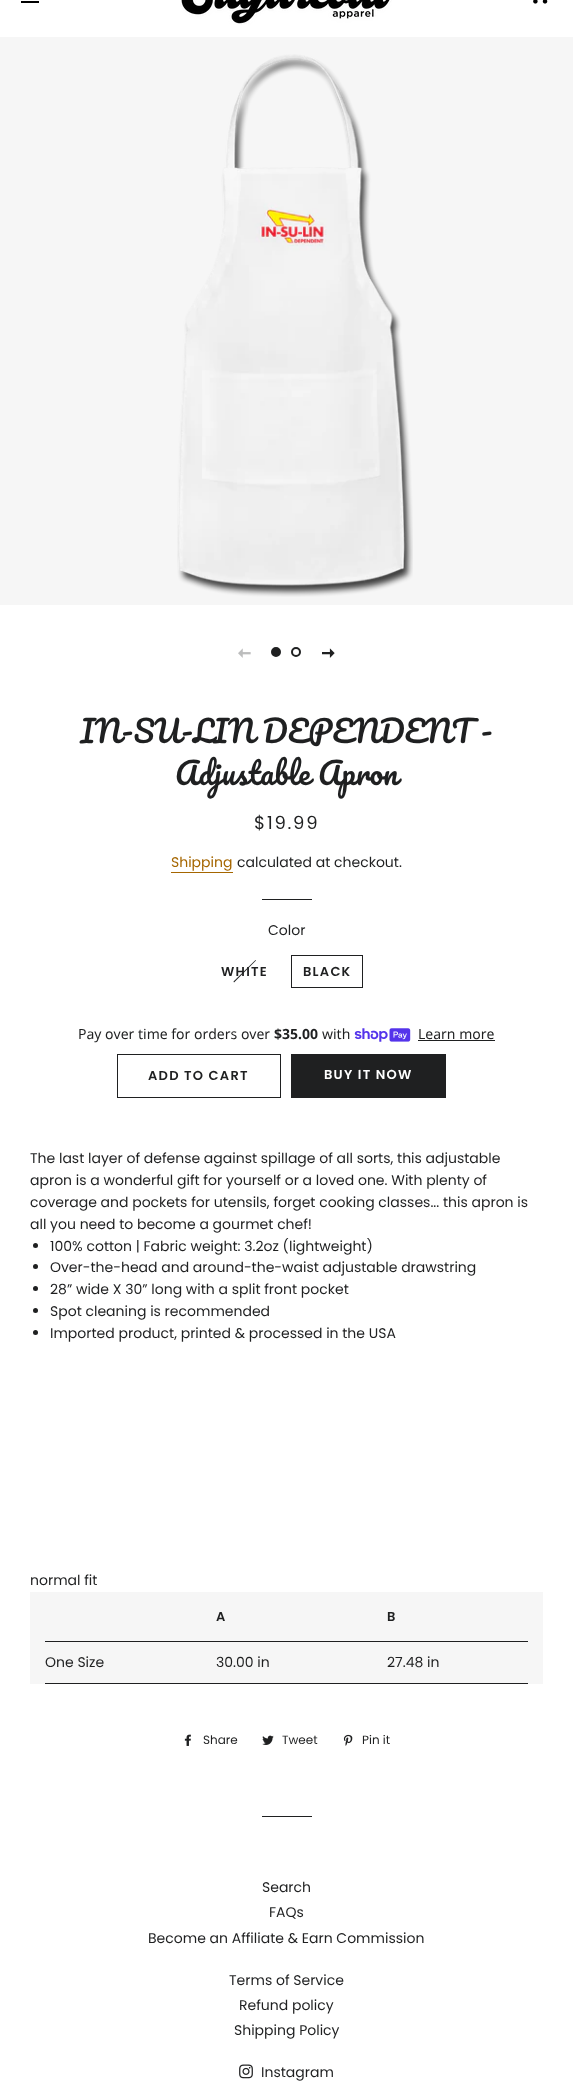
<svg xmlns="http://www.w3.org/2000/svg" width="573" height="2094">
	<style>*{font-kerning:none!important;font-variant-ligatures:none!important}</style>
	<rect width="100%" height="100%" fill="#FFFFFF" />
	<rect x="21" y="1" width="18" height="2" fill="#000000" />
	<image x="180" y="0" width="212" height="25" href="assets/img1.png" />
	<image x="533" y="0" width="15" height="4" href="assets/img2.png" />
	<rect x="0" y="37" width="573" height="568" fill="#F6F6F6" />
	<image x="177" y="54" width="236" height="543" href="assets/img3.png" />
	<image x="238" y="648" width="13" height="10" href="assets/img4.png" />
	<circle cx="276" cy="652" r="4" fill="#1F2021" stroke="#1F2021" stroke-width="2" />
	<circle cx="296" cy="652" r="4" fill="none" stroke="#1F2021" stroke-width="2" />
	<image x="322" y="648" width="13" height="10" href="assets/img5.png" />
	<g font-family="Pacifico" font-size="30" fill="#1F2021">
		<text x="80" y="743">IN-SU-LIN DEPENDENT -</text>
		<text x="175" y="785">Adjustable Apron</text>
	</g>
	<text x="254" y="829" font-family="Poppins" font-size="18" letter-spacing="1.75" fill="#1F2021">$19.99</text>
	<text x="171" y="867" font-family="Poppins" font-size="14" fill="#A56600">Shipping</text>
	<rect x="171" y="872" width="62" height="1" fill="#A56600" />
	<text x="237" y="867" font-family="Poppins" font-size="14" fill="#1F2021">calculated at checkout.</text>
	<rect x="262" y="899" width="50" height="1" fill="#1F2021" />
	<text x="268" y="935" font-family="Poppins" font-size="14" fill="#1F2021">Color</text>
	<path d="M255.5 960L256 960.5L234 982.5L233.5 981.5Z" fill="#1F2021" />
	<text x="221" y="976" font-family="Poppins" font-size="13" font-weight="600" letter-spacing="1.25" fill="#1F2021">WHITE</text>
	<rect x="291.5" y="955.5" width="71" height="32" fill="none" stroke="#1F2021" />
	<text x="303" y="976" font-family="Poppins" font-size="13" font-weight="600" letter-spacing="1.25" fill="#1F2021">BLACK</text>
	<text x="78" y="1039" font-family="Noto Sans" font-size="14" fill="#1F2021">Pay over time for orders over</text>
	<text x="274" y="1039" font-family="Noto Sans" font-size="14" font-weight="700" fill="#1F2021">$35.00</text>
	<text x="322" y="1039" font-family="Noto Sans" font-size="14" fill="#1F2021">with</text>
	<image x="354" y="1028" width="57" height="14" href="assets/img6.png" />
	<text x="418" y="1039" font-family="Noto Sans" font-size="14" fill="#1F2021">Learn more</text>
	<rect x="418" y="1040" width="77" height="1" fill="#1F2021" />
	<rect x="117.5" y="1054.5" width="163" height="43" fill="none" stroke="#1F2021" />
	<text x="148" y="1080" font-family="Poppins" font-size="13" font-weight="600" letter-spacing="1.25" fill="#1F2021">ADD TO CART</text>
	<rect x="291" y="1054" width="155" height="44" fill="#1F2021" />
	<text x="324" y="1079" font-family="Poppins" font-size="13" font-weight="600" letter-spacing="1.25" fill="#FFFFFF">BUY IT NOW</text>
	<g font-family="Poppins" font-size="14" fill="#1F2021">
		<text x="30" y="1163">The last layer of defense against spillage of all sorts, this adjustable</text>
		<text x="30" y="1185">apron is a wonderful gift for yourself or a loved one. With plenty of</text>
		<text x="30" y="1207">coverage and pockets for utensils, forget cooking classes... this apron is</text>
		<text x="30" y="1229">all you need to become a gourmet chef!</text>
	</g>
	<circle cx="35.5" cy="1245.5" r="2.5" fill="#1F2021" />
	<text x="50" y="1251" font-family="Poppins" font-size="14" fill="#1F2021">100% cotton | Fabric weight: 3.2oz (lightweight)</text>
	<circle cx="35.5" cy="1266.5" r="2.5" fill="#1F2021" />
	<text x="50" y="1272" font-family="Poppins" font-size="14" fill="#1F2021">Over-the-head and around-the-waist adjustable drawstring</text>
	<circle cx="35.5" cy="1288.5" r="2.5" fill="#1F2021" />
	<text x="50" y="1294" font-family="Poppins" font-size="14" fill="#1F2021">28” wide X 30” long with a split front pocket</text>
	<circle cx="35.5" cy="1310.5" r="2.5" fill="#1F2021" />
	<text x="50" y="1316" font-family="Poppins" font-size="14" fill="#1F2021">Spot cleaning is recommended</text>
	<circle cx="35.5" cy="1332.5" r="2.5" fill="#1F2021" />
	<g font-family="Poppins" font-size="14" fill="#1F2021">
		<text x="50" y="1338">Imported product, printed &amp; processed in the USA</text>
		<text x="30" y="1585">normal fit</text>
	</g>
	<rect x="30" y="1592" width="513" height="92" fill="#F6F6F6" />
	<g font-family="Poppins" font-size="13" font-weight="600" letter-spacing="2" fill="#1F2021">
		<text x="216" y="1621">A</text>
		<text x="387" y="1621">B</text>
	</g>
	<rect x="45" y="1641" width="483" height="1" fill="#1F2021" />
	<text x="45" y="1667" font-family="Poppins" font-size="14" fill="#1F2021">One Size</text>
	<rect x="45" y="1683" width="483" height="1" fill="#1F2021" />
	<g font-family="Poppins" font-size="14" fill="#1F2021">
		<text x="216" y="1667">30.00 in</text>
		<text x="387" y="1667">27.48 in</text>
	</g>
	<image x="184" y="1734" width="7" height="12" href="assets/img7.png" />
	<text x="203" y="1744" font-family="Poppins" font-size="12" fill="#1F2021">Share</text>
	<image x="262" y="1735" width="12" height="10" href="assets/img8.png" />
	<text x="282" y="1744" font-family="Poppins" font-size="12" fill="#1F2021">Tweet</text>
	<image x="343" y="1734" width="10" height="12" href="assets/img9.png" />
	<text x="362" y="1744" font-family="Poppins" font-size="12" fill="#1F2021">Pin it</text>
	<rect x="262" y="1816" width="50" height="1" fill="#1F2021" />
	<g font-family="Poppins" font-size="14" fill="#1F2021">
		<text x="262" y="1892">Search</text>
		<text x="269" y="1917">FAQs</text>
		<text x="148" y="1943">Become an Affiliate &amp; Earn Commission</text>
		<text x="229" y="1985">Terms of Service</text>
		<text x="239" y="2010">Refund policy</text>
		<text x="234" y="2035">Shipping Policy</text>
	</g>
	<image x="239" y="2064" width="14" height="15" href="assets/img10.png" />
	<text x="261" y="2077" font-family="Poppins" font-size="14" fill="#1F2021">Instagram</text>
</svg>
